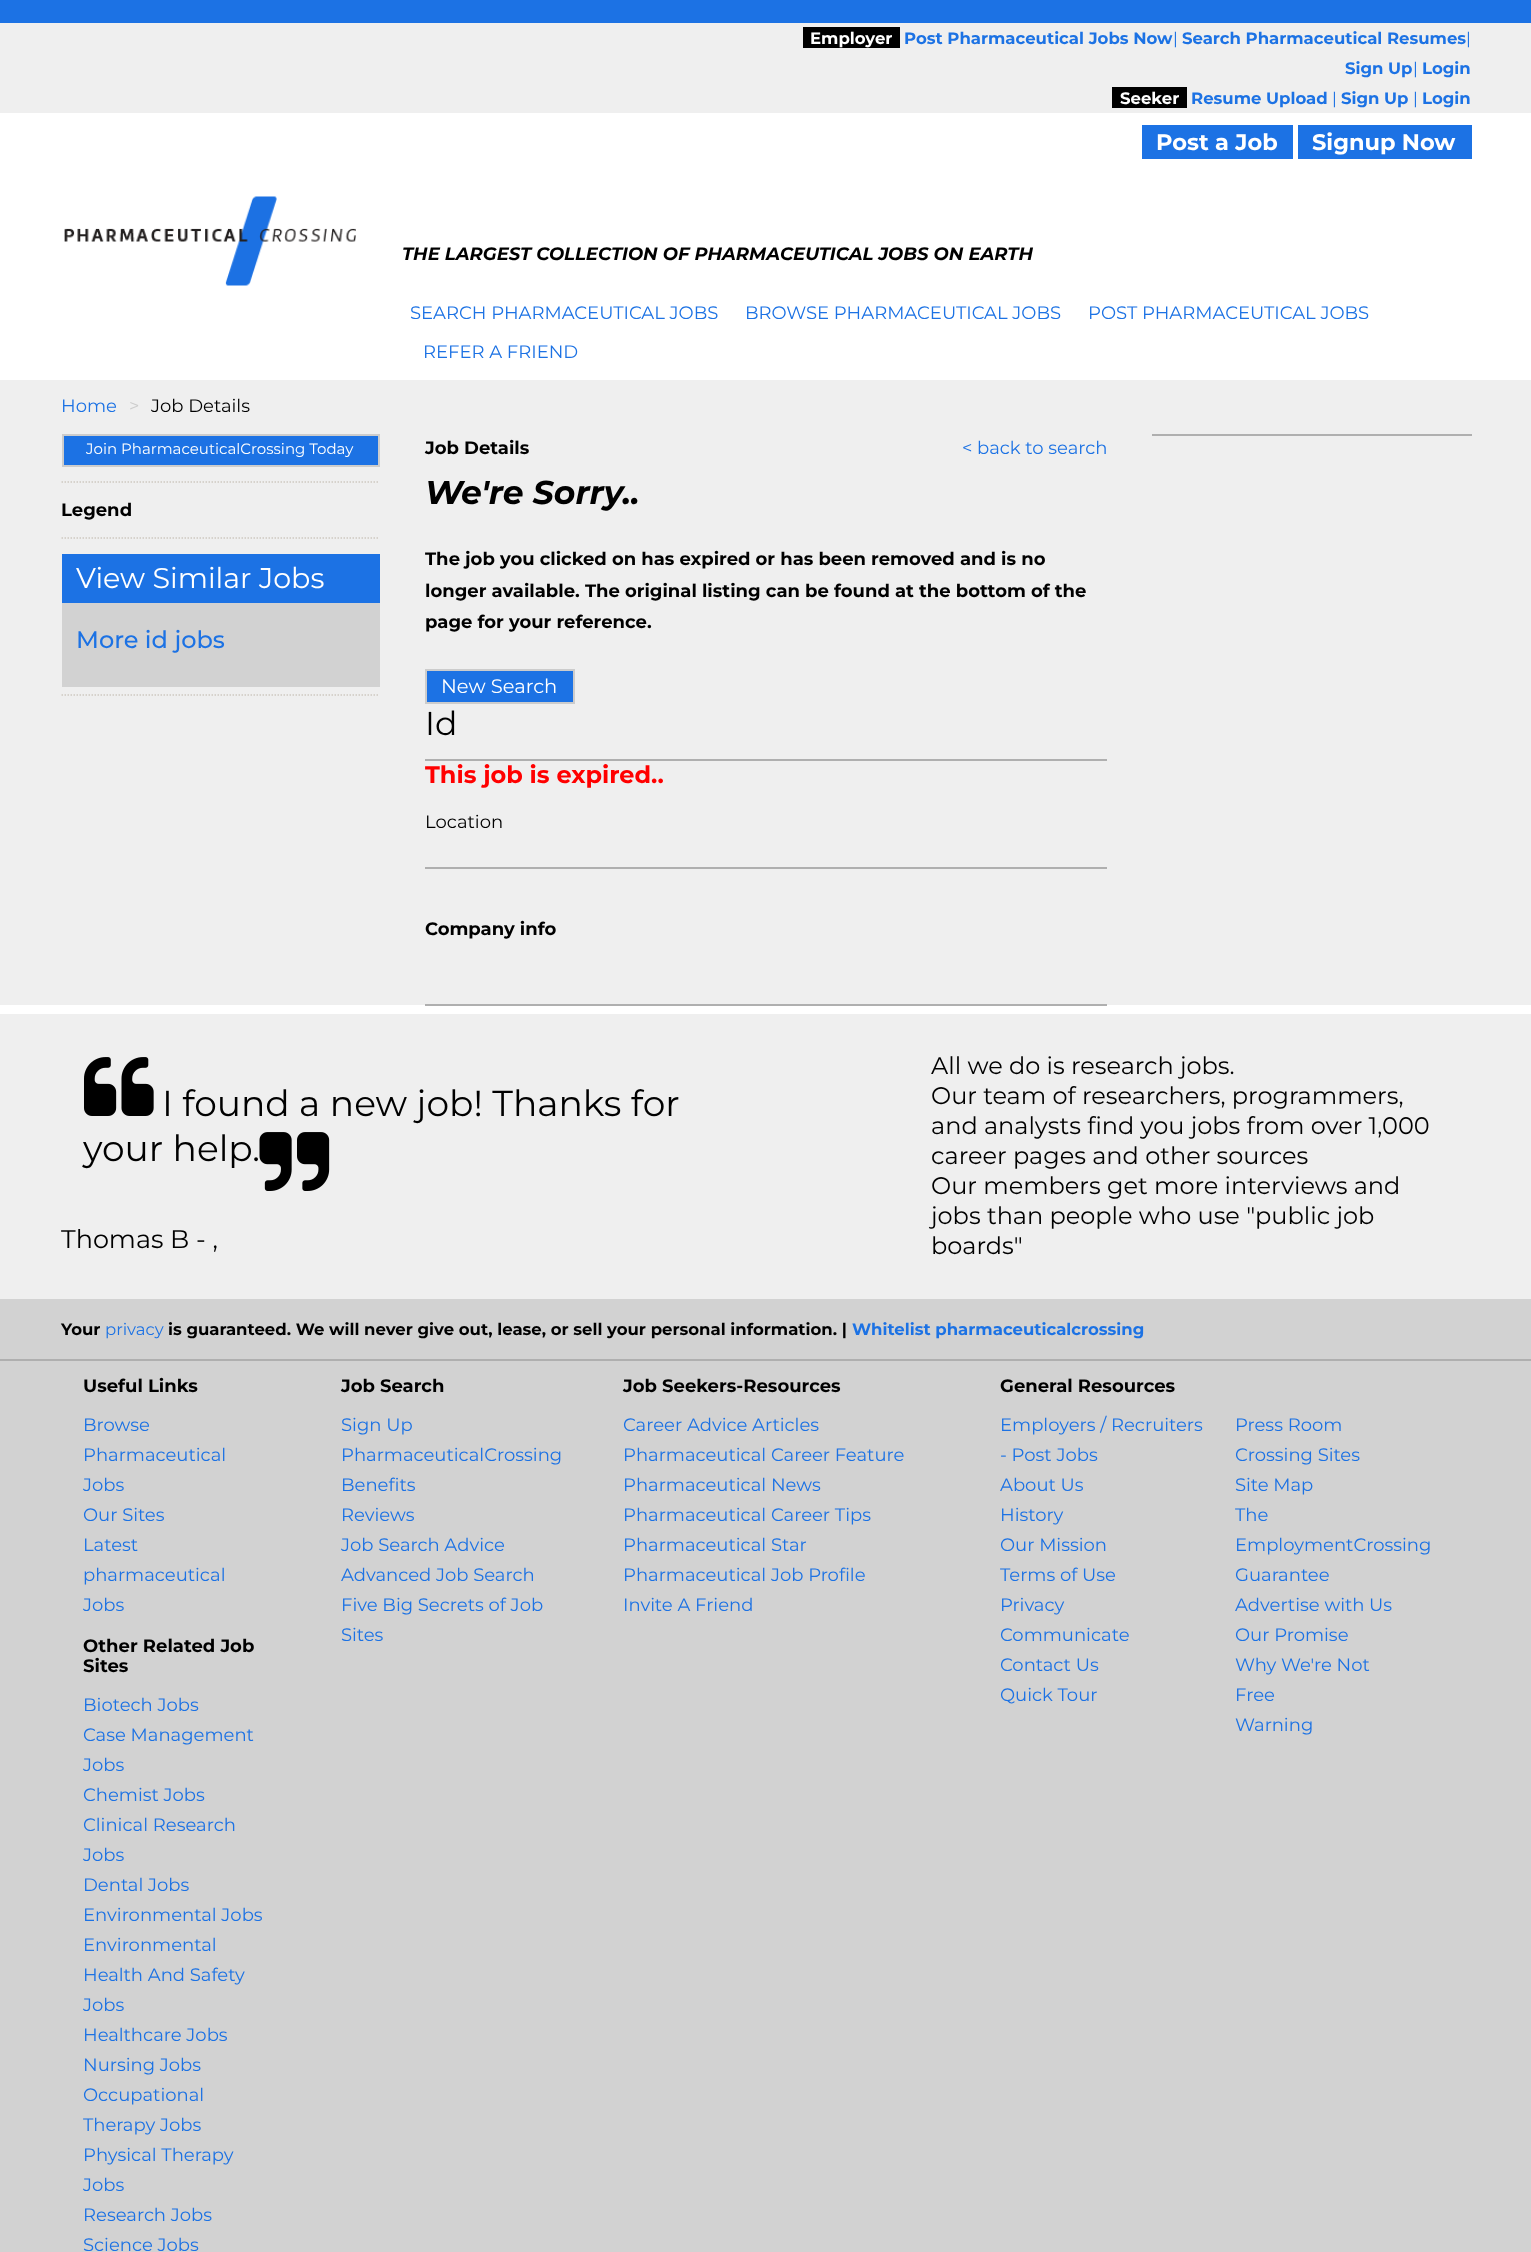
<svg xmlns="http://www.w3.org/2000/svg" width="1531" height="2252">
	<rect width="100%" height="100%" fill="#FFFFFF" />
	<rect x="0" y="23" width="1531" height="90" fill="#EFEFEF" />
	<rect x="0" y="0" width="1531" height="23" fill="#1C72E4" />
	<rect x="803" y="27" width="97" height="21" fill="#000000" />
	<text x="810" y="44" font-family="Montserrat" font-size="16.5" font-weight="700" fill="#FFFFFF">Employer</text>
	<text x="904" y="44" font-family="Montserrat" font-size="16.5" font-weight="700" fill="#1C72E4">Post Pharmaceutical Jobs Now</text>
	<text x="1173" y="44" font-family="Montserrat" font-size="16.5" fill="#1C72E4">|</text>
	<text x="1182" y="44" font-family="Montserrat" font-size="16.5" font-weight="700" fill="#1C72E4">Search Pharmaceutical Resumes</text>
	<text x="1466" y="44" font-family="Montserrat" font-size="16.5" fill="#1C72E4">|</text>
	<text x="1345" y="74" font-family="Montserrat" font-size="16.5" font-weight="700" fill="#1C72E4">Sign Up</text>
	<text x="1413" y="74" font-family="Montserrat" font-size="16.5" fill="#1C72E4">|</text>
	<text x="1422" y="74" font-family="Montserrat" font-size="16.5" font-weight="700" fill="#1C72E4">Login</text>
	<rect x="1112" y="87" width="75" height="21" fill="#000000" />
	<text x="1120" y="104" font-family="Montserrat" font-size="16.5" font-weight="700" fill="#FFFFFF">Seeker</text>
	<text x="1191" y="104" font-family="Montserrat" font-size="16.5" font-weight="700" fill="#1C72E4">Resume Upload</text>
	<text x="1332" y="104" font-family="Montserrat" font-size="16.5" fill="#1C72E4">|</text>
	<text x="1341" y="104" font-family="Montserrat" font-size="16.5" font-weight="700" fill="#1C72E4">Sign Up</text>
	<text x="1413" y="104" font-family="Montserrat" font-size="16.5" fill="#1C72E4">|</text>
	<text x="1422" y="104" font-family="Montserrat" font-size="16.5" font-weight="700" fill="#1C72E4">Login</text>
	<rect x="1142" y="125" width="151" height="34" fill="#1C72E4" />
	<text x="1156" y="150" font-family="Montserrat" font-size="22.5" font-weight="700" fill="#FFFFFF">Post a Job</text>
	<rect x="1298" y="125" width="174" height="34" fill="#1C72E4" />
	<text x="1312" y="150" font-family="Montserrat" font-size="22.5" font-weight="700" fill="#FFFFFF">Signup Now</text>
	<image x="64" y="196" width="292" height="90" href="assets/img1.png" />
	<text x="402" y="260" font-family="Montserrat" font-size="18" font-weight="700" font-style="italic" fill="#000000">THE LARGEST COLLECTION OF PHARMACEUTICAL JOBS ON EARTH</text>
	<g font-family="Montserrat" font-size="18" fill="#1C72E4">
		<text x="410" y="319">SEARCH PHARMACEUTICAL JOBS</text>
		<text x="745" y="319">BROWSE PHARMACEUTICAL JOBS</text>
		<text x="1088" y="319">POST PHARMACEUTICAL JOBS</text>
		<text x="423" y="358">REFER A FRIEND</text>
	</g>
	<rect x="0" y="380" width="1531" height="625" fill="#EFEFEF" />
	<text x="61" y="412" font-family="Montserrat" font-size="18" fill="#1C72E4">Home</text>
	<text x="129" y="412" font-family="Montserrat" font-size="18" fill="#CCCCCC">&gt;</text>
	<text x="151" y="412" font-family="Montserrat" font-size="18" fill="#000000">Job Details</text>
	<rect x="1152" y="434" width="320" height="2" fill="#AFAFAF" />
	<rect x="63" y="435" width="316" height="31" fill="#1C72E4" stroke="#CCCCCC" stroke-width="2" />
	<text x="86" y="454" font-family="Montserrat" font-size="15" fill="#FFFFFF">Join PharmaceuticalCrossing Today</text>
	<path d="M61.5 482H379.5" fill="none" stroke="#CEC9C1" stroke-width="1.5" stroke-dasharray="1.5 1.5" />
	<path d="M61.5 538H379.5" fill="none" stroke="#CEC9C1" stroke-width="1.5" stroke-dasharray="1.5 1.5" />
	<text x="61" y="516" font-family="Montserrat" font-size="18" font-weight="700" fill="#000000">Legend</text>
	<rect x="62" y="603" width="318" height="84" fill="#D2D2D2" />
	<rect x="62" y="554" width="318" height="49" fill="#1C72E4" />
	<text x="76" y="588" font-family="Montserrat" font-size="28.5" fill="#FFFFFF">View Similar Jobs</text>
	<text x="76" y="648" font-family="Montserrat" font-size="24" font-weight="500" fill="#1C72E4">More id jobs</text>
	<path d="M61.5 695H379.5" fill="none" stroke="#CEC9C1" stroke-width="1.5" stroke-dasharray="1.5 1.5" />
	<text x="425" y="454" font-family="Montserrat" font-size="18" font-weight="700" fill="#000000">Job Details</text>
	<text x="962" y="454" font-family="Montserrat" font-size="18" fill="#1C72E4">&lt; back to search</text>
	<text x="425" y="504" font-family="Montserrat" font-size="33" font-weight="700" font-style="italic" fill="#000000">We're Sorry..</text>
	<g font-family="Montserrat" font-size="18" font-weight="700" fill="#000000">
		<text x="425" y="565">The job you clicked on has expired or has been removed and is no</text>
		<text x="425" y="597">longer available. The original listing can be found at the bottom of the</text>
		<text x="425" y="628">page for your reference.</text>
	</g>
	<rect x="426" y="670" width="148" height="33" fill="#1C72E4" stroke="#CCCCCC" stroke-width="2" />
	<text x="441" y="693" font-family="Montserrat" font-size="19.5" fill="#FFFFFF">New Search</text>
	<rect x="425" y="759" width="682" height="2" fill="#AFAFAF" />
	<text x="425" y="735" font-family="Montserrat" font-size="33" fill="#000000">Id</text>
	<text x="425" y="783" font-family="Montserrat" font-size="24" font-weight="700" fill="#FF0000">This job is expired..</text>
	<rect x="425" y="1004" width="682" height="2" fill="#AFAFAF" />
	<text x="425" y="828" font-family="Montserrat" font-size="18" fill="#000000">Location</text>
	<rect x="425" y="867" width="682" height="2" fill="#AFAFAF" />
	<text x="425" y="935" font-family="Montserrat" font-size="18" font-weight="700" fill="#000000">Company info</text>
	<rect x="0" y="1299" width="1531" height="953" fill="#D2D2D2" />
	<rect x="0" y="1014" width="1531" height="285" fill="#EFEFEF" />
	<image x="84" y="1057" width="70" height="59" href="assets/img2.png" />
	<g font-family="Montserrat" font-size="36" fill="#000000">
		<text x="162" y="1116">I found a new job! Thanks for</text>
		<text x="83" y="1161">your help.</text>
	</g>
	<image x="259" y="1132" width="71" height="59" href="assets/img3.png" />
	<text x="61" y="1248" font-family="Montserrat" font-size="25.5" fill="#000000">Thomas B - ,</text>
	<g font-family="Montserrat" font-size="24" fill="#000000">
		<text x="931" y="1074">All we do is research jobs.</text>
		<text x="931" y="1104">Our team of researchers, programmers,</text>
		<text x="931" y="1134">and analysts find you jobs from over 1,000</text>
		<text x="931" y="1164">career pages and other sources</text>
		<text x="931" y="1194">Our members get more interviews and</text>
		<text x="931" y="1224">jobs than people who use "public job</text>
		<text x="931" y="1254">boards"</text>
	</g>
	<rect x="0" y="1359" width="1531" height="2" fill="#AFAFAF" />
	<text x="61" y="1335" font-family="Montserrat" font-size="16.5" font-weight="700" fill="#000000">Your</text>
	<text x="105" y="1335" font-family="Montserrat" font-size="16.5" fill="#1C72E4">privacy</text>
	<text x="168" y="1335" font-family="Montserrat" font-size="16.5" font-weight="700" fill="#000000">is guaranteed. We will never give out, lease, or sell your personal information. |</text>
	<text x="852" y="1335" font-family="Montserrat" font-size="16.5" font-weight="700" fill="#1C72E4">Whitelist pharmaceuticalcrossing</text>
	<text x="83" y="1392" font-family="Montserrat" font-size="18" font-weight="700" fill="#000000">Useful Links</text>
	<g font-family="Montserrat" font-size="18" fill="#1C72E4">
		<text x="83" y="1431">Browse</text>
		<text x="83" y="1461">Pharmaceutical</text>
		<text x="83" y="1491">Jobs</text>
		<text x="83" y="1521">Our Sites</text>
		<text x="83" y="1551">Latest</text>
		<text x="83" y="1581">pharmaceutical</text>
		<text x="83" y="1611">Jobs</text>
	</g>
	<g font-family="Montserrat" font-size="18" font-weight="700" fill="#000000">
		<text x="83" y="1652">Other Related Job</text>
		<text x="83" y="1672">Sites</text>
	</g>
	<g font-family="Montserrat" font-size="18" fill="#1C72E4">
		<text x="83" y="1711">Biotech Jobs</text>
		<text x="83" y="1741">Case Management</text>
		<text x="83" y="1771">Jobs</text>
		<text x="83" y="1801">Chemist Jobs</text>
		<text x="83" y="1831">Clinical Research</text>
		<text x="83" y="1861">Jobs</text>
		<text x="83" y="1891">Dental Jobs</text>
		<text x="83" y="1921">Environmental Jobs</text>
		<text x="83" y="1951">Environmental</text>
		<text x="83" y="1981">Health And Safety</text>
		<text x="83" y="2011">Jobs</text>
		<text x="83" y="2041">Healthcare Jobs</text>
		<text x="83" y="2071">Nursing Jobs</text>
		<text x="83" y="2101">Occupational</text>
		<text x="83" y="2131">Therapy Jobs</text>
		<text x="83" y="2161">Physical Therapy</text>
		<text x="83" y="2191">Jobs</text>
		<text x="83" y="2221">Research Jobs</text>
		<text x="83" y="2251">Science Jobs</text>
	</g>
	<text x="341" y="1392" font-family="Montserrat" font-size="18" font-weight="700" fill="#000000">Job Search</text>
	<g font-family="Montserrat" font-size="18" fill="#1C72E4">
		<text x="341" y="1431">Sign Up</text>
		<text x="341" y="1461">PharmaceuticalCrossing</text>
		<text x="341" y="1491">Benefits</text>
		<text x="341" y="1521">Reviews</text>
		<text x="341" y="1551">Job Search Advice</text>
		<text x="341" y="1581">Advanced Job Search</text>
		<text x="341" y="1611">Five Big Secrets of Job</text>
		<text x="341" y="1641">Sites</text>
	</g>
	<text x="623" y="1392" font-family="Montserrat" font-size="18" font-weight="700" fill="#000000">Job Seekers-Resources</text>
	<g font-family="Montserrat" font-size="18" fill="#1C72E4">
		<text x="623" y="1431">Career Advice Articles</text>
		<text x="623" y="1461">Pharmaceutical Career Feature</text>
		<text x="623" y="1491">Pharmaceutical News</text>
		<text x="623" y="1521">Pharmaceutical Career Tips</text>
		<text x="623" y="1551">Pharmaceutical Star</text>
		<text x="623" y="1581">Pharmaceutical Job Profile</text>
		<text x="623" y="1611">Invite A Friend</text>
	</g>
	<text x="1000" y="1392" font-family="Montserrat" font-size="18" font-weight="700" fill="#000000">General Resources</text>
	<g font-family="Montserrat" font-size="18" fill="#1C72E4">
		<text x="1000" y="1431">Employers / Recruiters</text>
		<text x="1000" y="1461">- Post Jobs</text>
		<text x="1000" y="1491">About Us</text>
		<text x="1000" y="1521">History</text>
		<text x="1000" y="1551">Our Mission</text>
		<text x="1000" y="1581">Terms of Use</text>
		<text x="1000" y="1611">Privacy</text>
		<text x="1000" y="1641">Communicate</text>
		<text x="1000" y="1671">Contact Us</text>
		<text x="1000" y="1701">Quick Tour</text>
		<text x="1235" y="1431">Press Room</text>
		<text x="1235" y="1461">Crossing Sites</text>
		<text x="1235" y="1491">Site Map</text>
		<text x="1235" y="1521">The</text>
		<text x="1235" y="1551">EmploymentCrossing</text>
		<text x="1235" y="1581">Guarantee</text>
		<text x="1235" y="1611">Advertise with Us</text>
		<text x="1235" y="1641">Our Promise</text>
		<text x="1235" y="1671">Why We're Not</text>
		<text x="1235" y="1701">Free</text>
		<text x="1235" y="1731">Warning</text>
	</g>
</svg>
